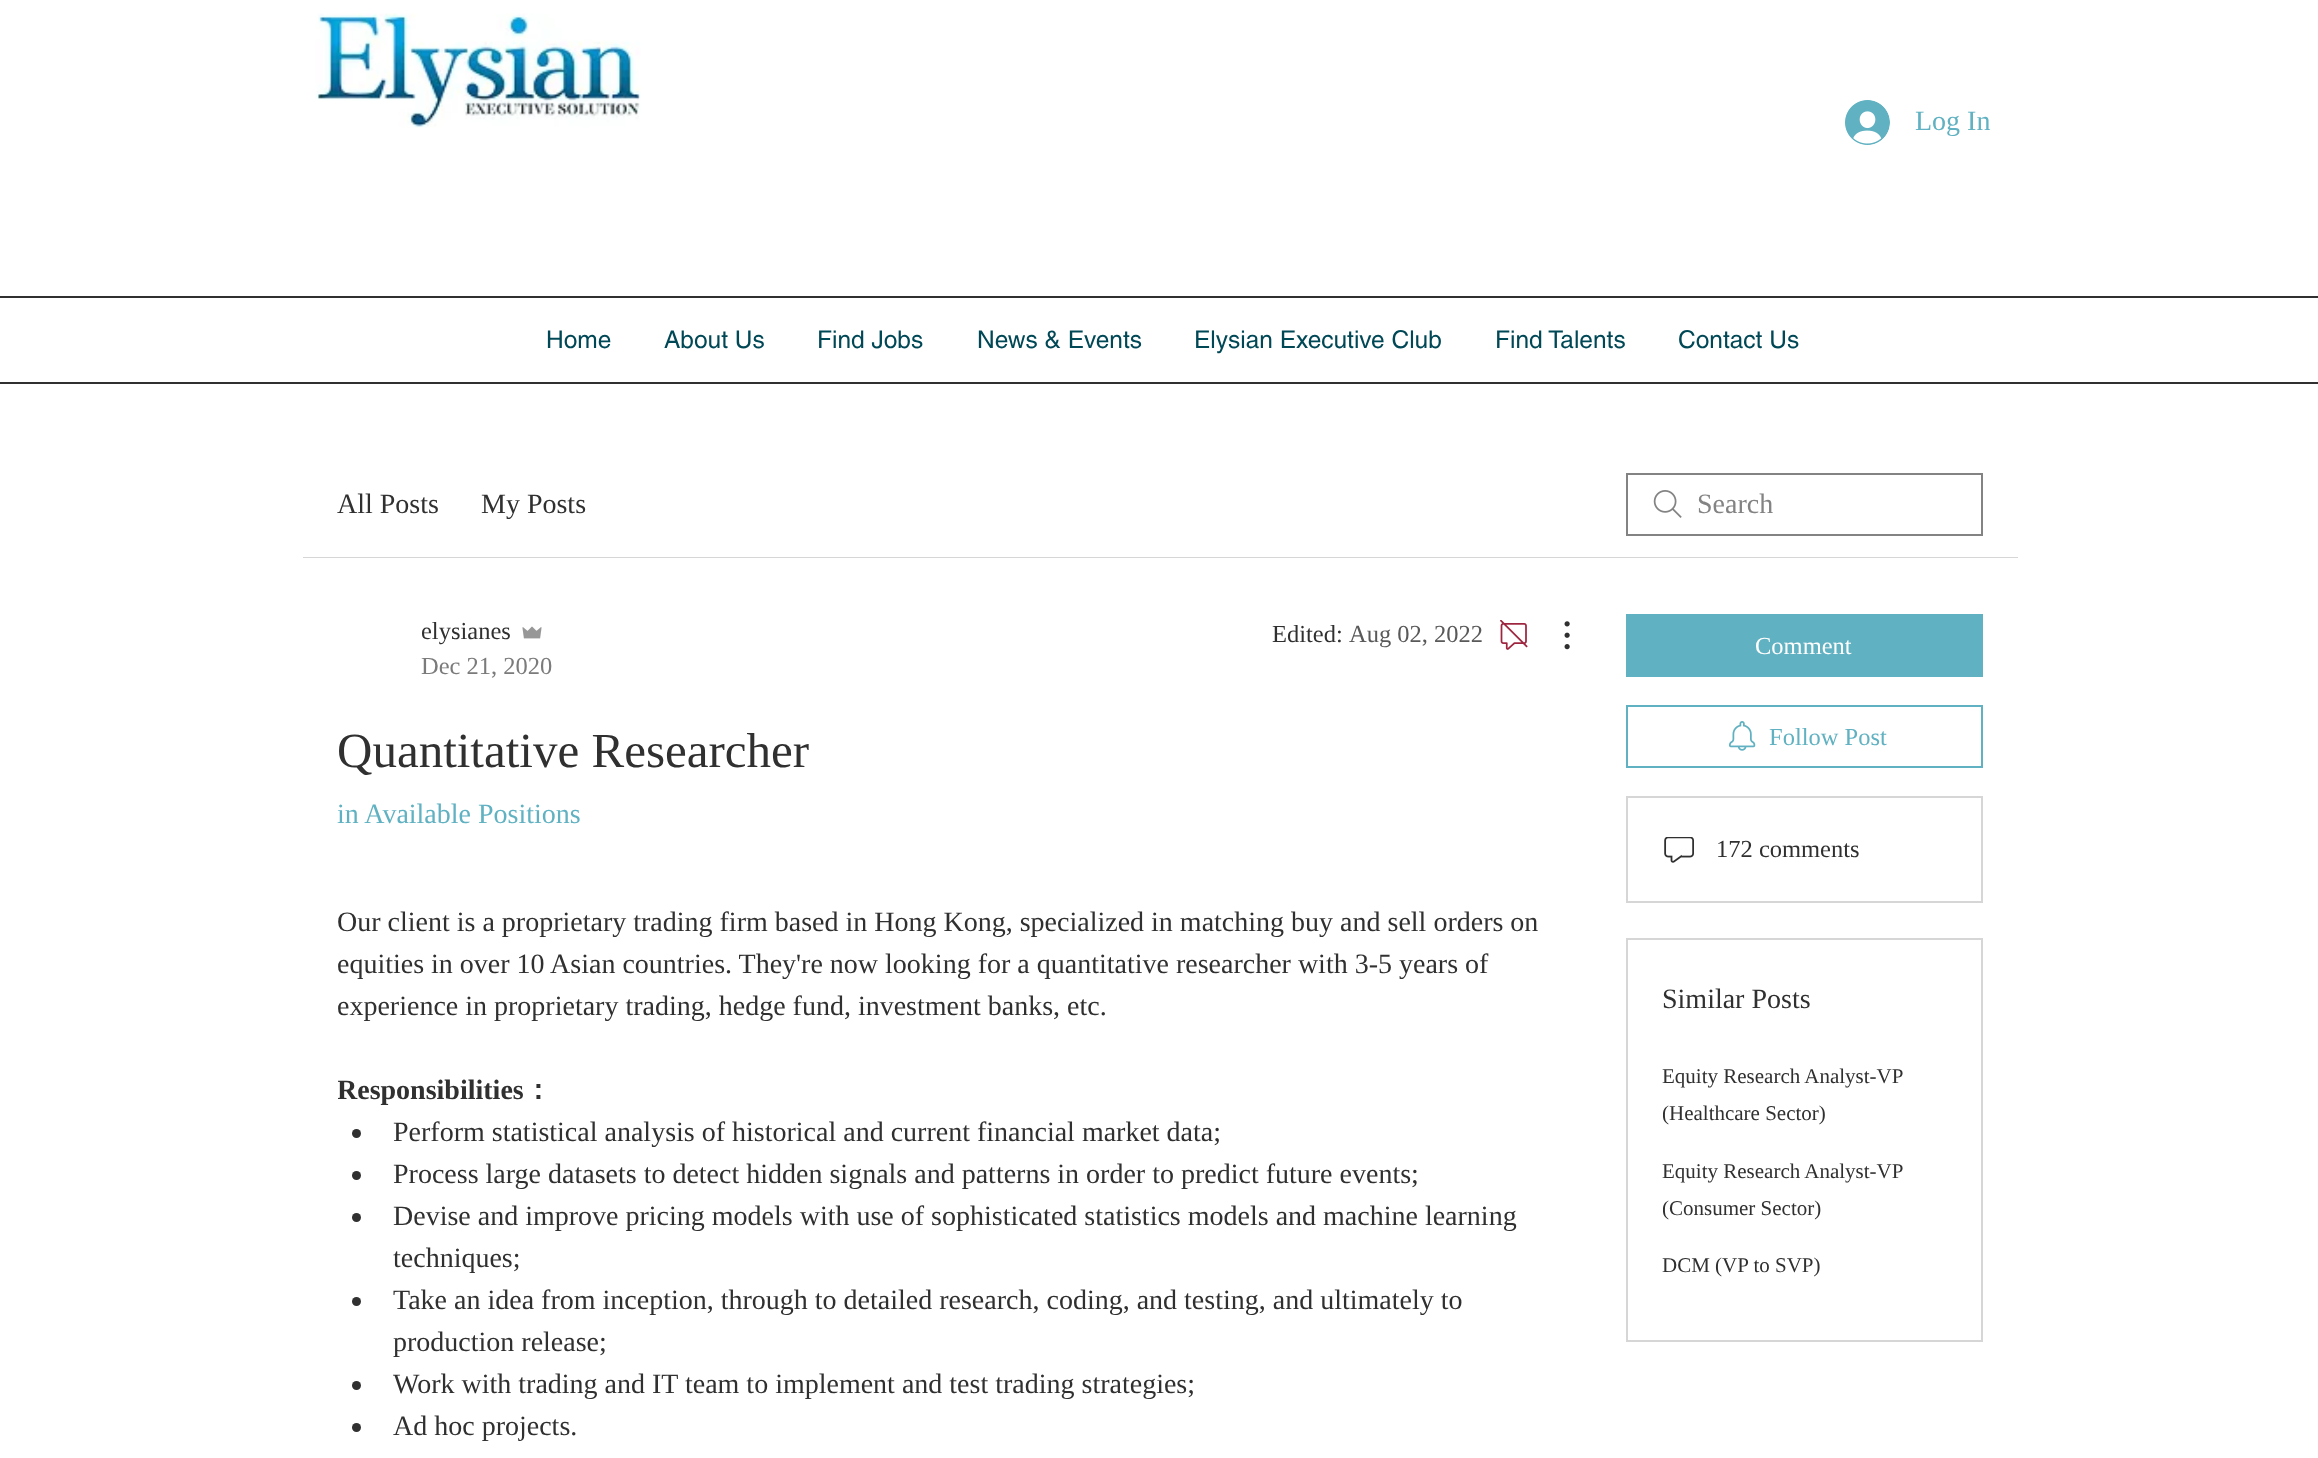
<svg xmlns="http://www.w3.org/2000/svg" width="2318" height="1458">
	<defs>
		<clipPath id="clip1"><rect x="422" y="614" width="89" height="35" /></clipPath>
		<clipPath id="clip2"><rect x="338" y="859" width="1232" height="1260" /></clipPath>
		<clipPath id="clip3"><rect x="1663" y="1059" width="283" height="73" /></clipPath>
		<clipPath id="clip4"><rect x="1663" y="1153" width="283" height="74" /></clipPath>
	</defs>
	<rect width="100%" height="100%" fill="#FFFFFF" />
	<image x="315" y="13" width="326" height="115" href="assets/img1.png" />
	<image x="1845" y="100" width="45" height="45" href="assets/img2.png" />
	<text x="1915" y="130" font-family="Liberation Serif" font-size="28" fill="#60B1C1">Log In</text>
	<rect x="0" y="296" width="2318" height="2" fill="#303030" />
	<rect x="0" y="382" width="2318" height="2" fill="#303030" />
	<g font-family="helvetica" font-size="24.5" fill="#004856">
		<text x="546" y="348">Home</text>
		<text x="664" y="348">About Us</text>
		<text x="817" y="348">Find Jobs</text>
		<text x="977" y="348">News &amp; Events</text>
		<text x="1194" y="348">Elysian Executive Club</text>
		<text x="1495" y="348">Find Talents</text>
		<text x="1678" y="348">Contact Us</text>
	</g>
	<rect x="303" y="557" width="1715" height="1" fill="#D6D6D6" />
	<g font-family="Liberation Serif" font-size="28" fill="#303030">
		<text x="337" y="513">All Posts</text>
		<text x="481" y="513">My Posts</text>
	</g>
	<image x="1653" y="490" width="29" height="28" href="assets/img3.png" />
	<rect x="1627" y="474" width="355" height="61" fill="none" stroke="#838383" stroke-width="2" />
	<text x="1697" y="513" font-family="Liberation Serif" font-size="28" fill="#838383">Search</text>
	<g clip-path="url(#clip1)">
		<text x="421" y="639" font-family="Liberation Serif" font-size="24.5" fill="#303030">elysianes</text>
	</g>
	<image x="522" y="626" width="20" height="13" href="assets/img4.png" />
	<text x="421" y="674" font-family="Liberation Serif" font-size="24.5" fill="#7B7B7B">Dec 21, 2020</text>
	<text x="1272" y="642" font-family="Liberation Serif" font-size="24.5" fill="#303030">Edited:</text>
	<text x="1349" y="642" font-family="Liberation Serif" font-size="24.5" fill="#595959">Aug 02, 2022</text>
	<image x="1500" y="620" width="28" height="30" href="assets/img5.png" />
	<image x="1564" y="621" width="6" height="29" href="assets/img6.png" />
	<text x="337" y="767" font-family="Liberation Serif" font-size="49" fill="#303030">Quantitative Researcher</text>
	<text x="337" y="823" font-family="Liberation Serif" font-size="28" fill="#60B1C1">in Available Positions</text>
	<g font-family="Liberation Serif" font-size="28" fill="#303030">
		<text x="337" y="931">Our client is a proprietary trading firm based in Hong Kong, specialized in matching buy and sell orders on</text>
		<text x="337" y="973">equities in over 10 Asian countries. They're now looking for a quantitative researcher with 3-5 years of</text>
		<text x="337" y="1015">experience in proprietary trading, hedge fund, investment banks, etc.</text>
	</g>
	<g clip-path="url(#clip2)">
		<text x="337" y="1099" font-family="Liberation Serif" font-size="28" font-weight="700" fill="#303030">Responsibilities</text>
	</g>
	<text x="524" y="1099" font-family="WenQuanYi Zen Hei" font-size="28" font-weight="700" fill="#303030">：</text>
	<circle cx="356.5" cy="1133.5" r="4.5" fill="#303030" />
	<text x="393" y="1141" font-family="Liberation Serif" font-size="28" fill="#303030">Perform statistical analysis of historical and current financial market data;</text>
	<circle cx="356.5" cy="1175.5" r="4.5" fill="#303030" />
	<text x="393" y="1183" font-family="Liberation Serif" font-size="28" fill="#303030">Process large datasets to detect hidden signals and patterns in order to predict future events;</text>
	<circle cx="356.5" cy="1217.5" r="4.5" fill="#303030" />
	<g font-family="Liberation Serif" font-size="28" fill="#303030">
		<text x="393" y="1225">Devise and improve pricing models with use of sophisticated statistics models and machine learning</text>
		<text x="393" y="1267">techniques;</text>
	</g>
	<circle cx="356.5" cy="1301.5" r="4.5" fill="#303030" />
	<g font-family="Liberation Serif" font-size="28" fill="#303030">
		<text x="393" y="1309">Take an idea from inception, through to detailed research, coding, and testing, and ultimately to</text>
		<text x="393" y="1351">production release;</text>
	</g>
	<circle cx="356.5" cy="1385.5" r="4.5" fill="#303030" />
	<text x="393" y="1393" font-family="Liberation Serif" font-size="28" fill="#303030">Work with trading and IT team to implement and test trading strategies;</text>
	<circle cx="356.5" cy="1427.5" r="4.5" fill="#303030" />
	<text x="393" y="1435" font-family="Liberation Serif" font-size="28" fill="#303030">Ad hoc projects.</text>
	<rect x="1626" y="614" width="357" height="63" fill="#60B1C1" />
	<text x="1755" y="654" font-family="Liberation Serif" font-size="24.5" fill="#FFFFFF">Comment</text>
	<rect x="1627" y="706" width="355" height="61" fill="none" stroke="#60B1C1" stroke-width="2" />
	<image x="1729" y="721" width="27" height="30" href="assets/img7.png" />
	<text x="1769" y="745" font-family="Liberation Serif" font-size="24.5" fill="#60B1C1">Follow Post</text>
	<rect x="1627" y="797" width="355" height="105" fill="none" stroke="#D6D6D6" stroke-width="2" />
	<image x="1664" y="837" width="30" height="26" href="assets/img8.png" />
	<text x="1716" y="857" font-family="Liberation Serif" font-size="24.5" fill="#303030">172 comments</text>
	<rect x="1627" y="939" width="355" height="402" fill="none" stroke="#D6D6D6" stroke-width="2" />
	<text x="1662" y="1008" font-family="Liberation Serif" font-size="28" fill="#303030">Similar Posts</text>
	<text x="1662" y="1083" font-family="Liberation Serif" font-size="21" fill="#303030">Equity Research Analyst-VP</text>
	<g clip-path="url(#clip3)">
		<text x="1662" y="1120" font-family="Liberation Serif" font-size="21" fill="#303030">(Healthcare Sector)</text>
	</g>
	<text x="1662" y="1178" font-family="Liberation Serif" font-size="21" fill="#303030">Equity Research Analyst-VP</text>
	<g clip-path="url(#clip4)">
		<text x="1662" y="1215" font-family="Liberation Serif" font-size="21" fill="#303030">(Consumer Sector)</text>
	</g>
	<text x="1662" y="1272" font-family="Liberation Serif" font-size="21" fill="#303030">DCM (VP to SVP)</text>
</svg>
